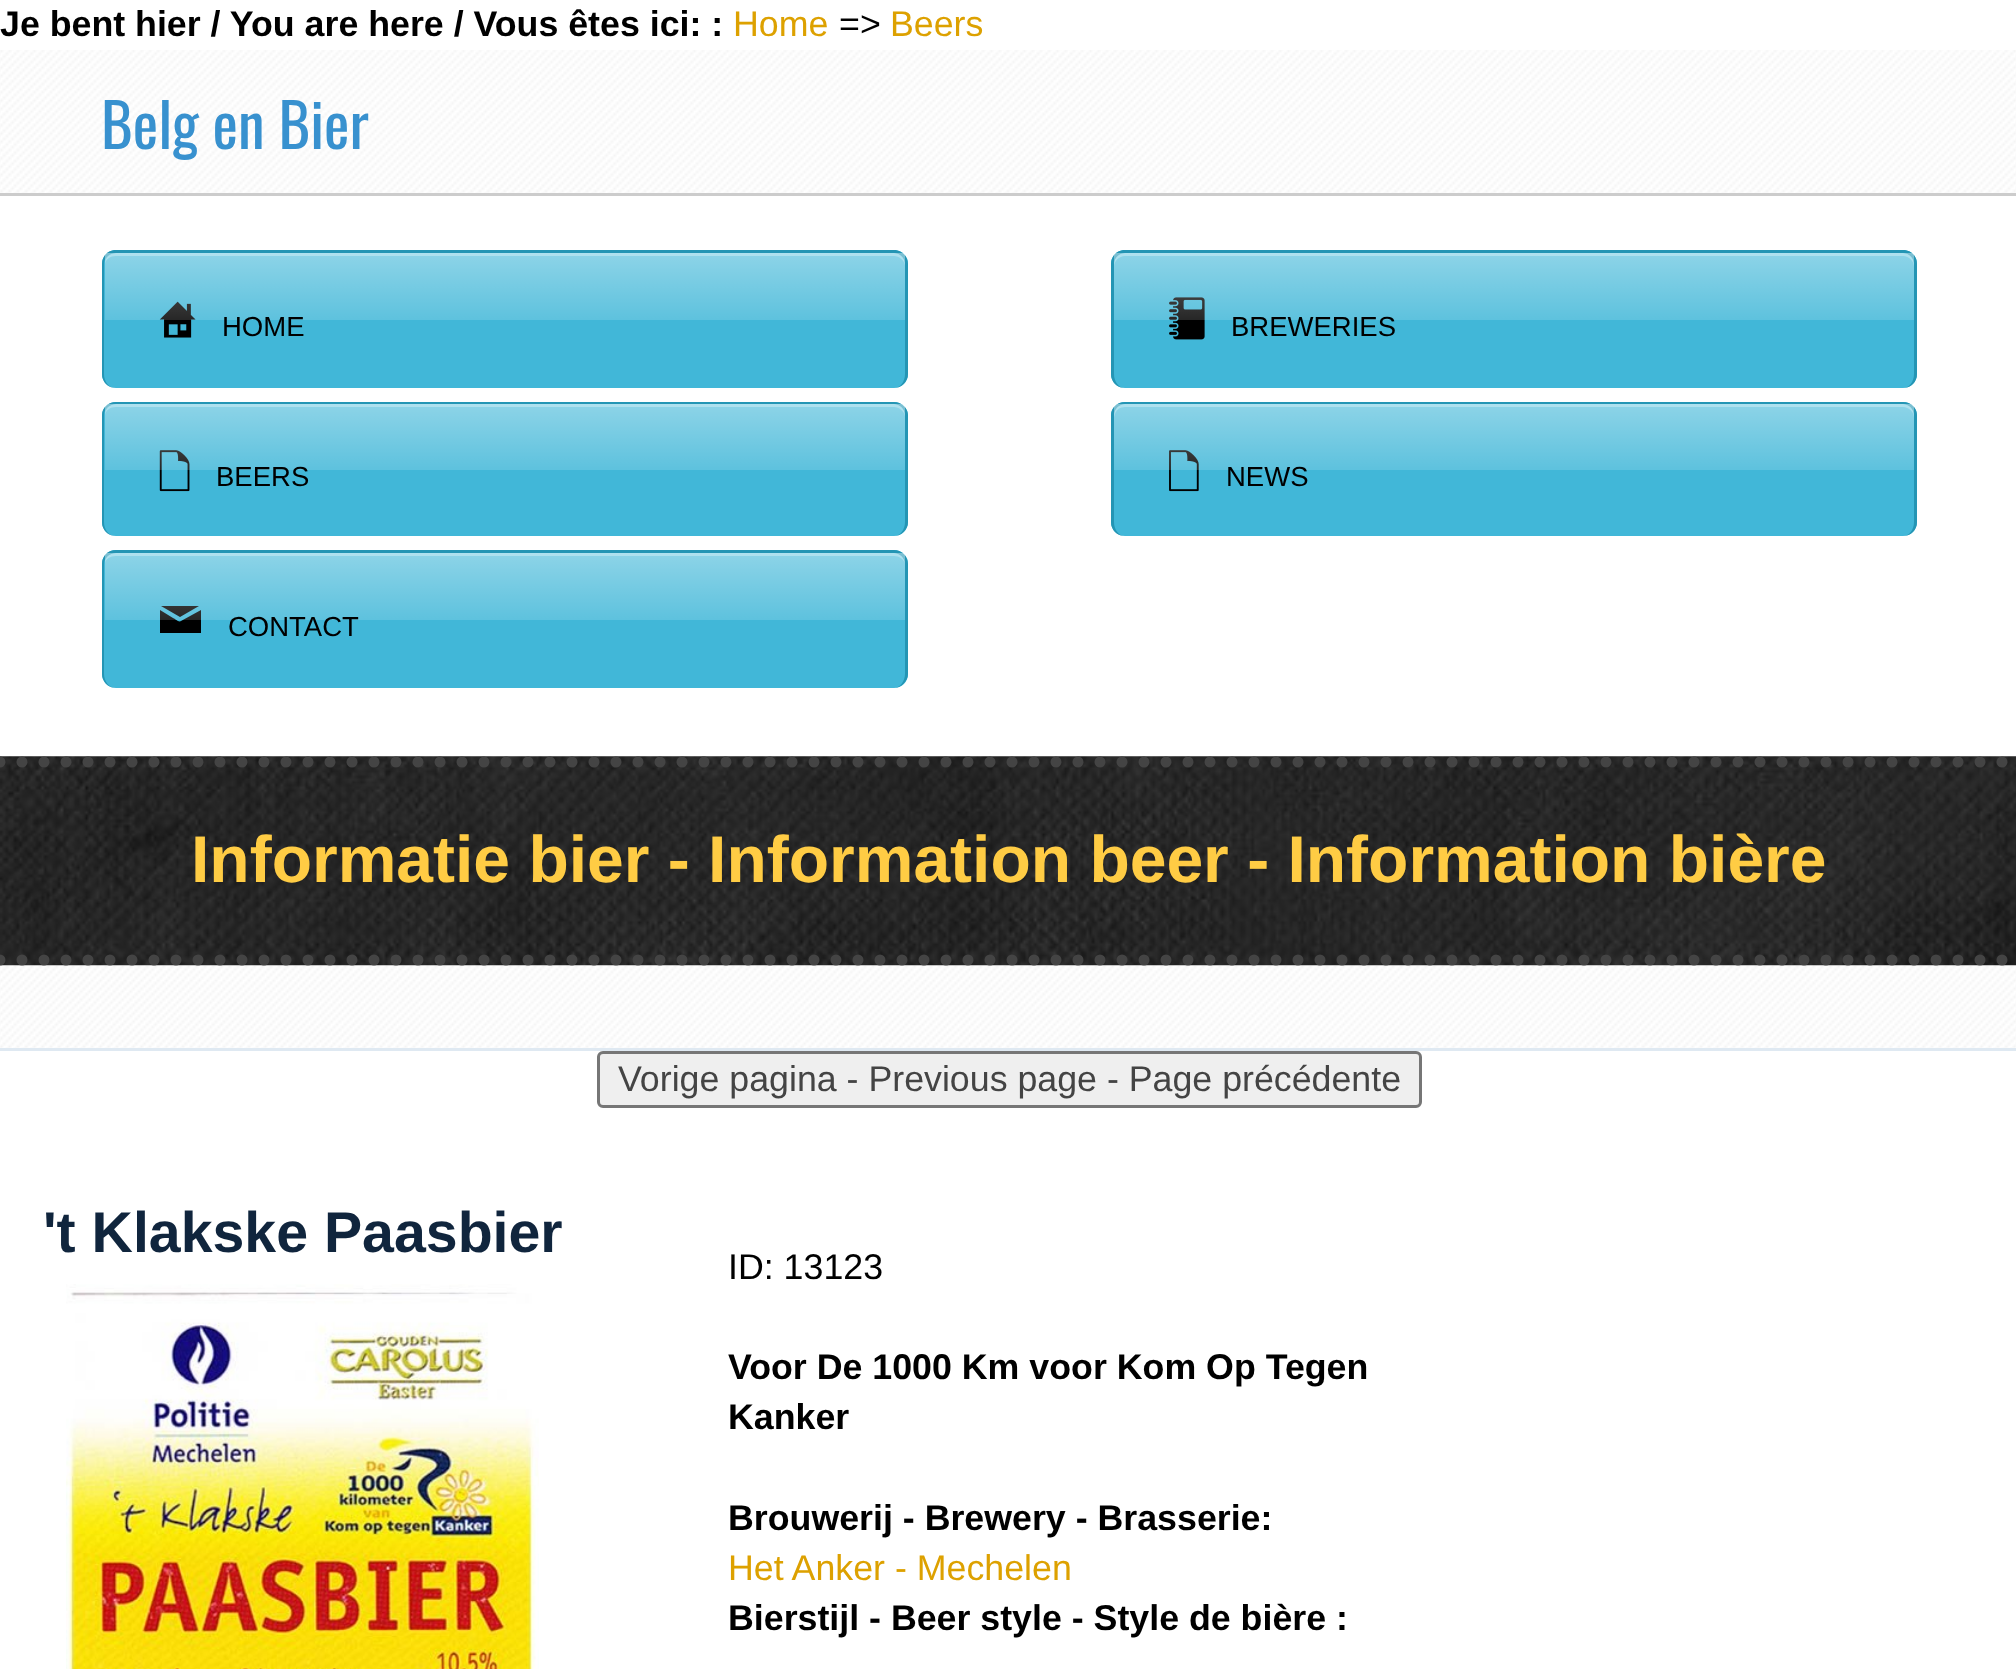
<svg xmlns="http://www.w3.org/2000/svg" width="2016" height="1669">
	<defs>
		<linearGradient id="g1" gradientUnits="userSpaceOnUse" x1="105" y1="253" x2="105" y2="388"><stop offset="0" stop-color="#FFFFFF" stop-opacity="0.4" /><stop offset="0.5" stop-color="#FFFFFF" stop-opacity="0.15" /><stop offset="0.5" stop-color="#FFFFFF" stop-opacity="0" /><stop offset="1" stop-color="#FFFFFF" stop-opacity="0" /></linearGradient>
		<linearGradient id="g2" gradientUnits="userSpaceOnUse" x1="1114" y1="253" x2="1114" y2="388"><stop offset="0" stop-color="#FFFFFF" stop-opacity="0.4" /><stop offset="0.5" stop-color="#FFFFFF" stop-opacity="0.15" /><stop offset="0.5" stop-color="#FFFFFF" stop-opacity="0" /><stop offset="1" stop-color="#FFFFFF" stop-opacity="0" /></linearGradient>
		<linearGradient id="g3" gradientUnits="userSpaceOnUse" x1="105" y1="404" x2="105" y2="536"><stop offset="0" stop-color="#FFFFFF" stop-opacity="0.4" /><stop offset="0.5" stop-color="#FFFFFF" stop-opacity="0.15" /><stop offset="0.5" stop-color="#FFFFFF" stop-opacity="0" /><stop offset="1" stop-color="#FFFFFF" stop-opacity="0" /></linearGradient>
		<linearGradient id="g4" gradientUnits="userSpaceOnUse" x1="1114" y1="404" x2="1114" y2="536"><stop offset="0" stop-color="#FFFFFF" stop-opacity="0.4" /><stop offset="0.5" stop-color="#FFFFFF" stop-opacity="0.15" /><stop offset="0.5" stop-color="#FFFFFF" stop-opacity="0" /><stop offset="1" stop-color="#FFFFFF" stop-opacity="0" /></linearGradient>
		<linearGradient id="g5" gradientUnits="userSpaceOnUse" x1="105" y1="553" x2="105" y2="688"><stop offset="0" stop-color="#FFFFFF" stop-opacity="0.4" /><stop offset="0.5" stop-color="#FFFFFF" stop-opacity="0.15" /><stop offset="0.5" stop-color="#FFFFFF" stop-opacity="0" /><stop offset="1" stop-color="#FFFFFF" stop-opacity="0" /></linearGradient>
	</defs>
	<rect width="100%" height="100%" fill="#FFFFFF" />
	<text x="0" y="36" font-family="Liberation Sans" font-size="35.75" font-weight="700" fill="#000000">Je bent hier / You are here / Vous êtes ici: :</text>
	<text x="733" y="36" font-family="Liberation Sans" font-size="35.75" fill="#DDA100">Home</text>
	<text x="839" y="36" font-family="Liberation Sans" font-size="35.75" fill="#000000">=&gt;</text>
	<text x="890" y="36" font-family="Liberation Sans" font-size="35.75" fill="#DDA100">Beers</text>
	<image x="0" y="50" width="2016" height="143" href="assets/img1.png" />
	<rect x="0" y="193" width="2016" height="3" fill="#CCCCCC" />
	<text x="101" y="149" font-family="Oswald" font-size="60.5" fill="#3891CF">Belg en Bier</text>
	<rect x="102" y="250" width="806" height="138" rx="14" fill="#41B7D8" />
	<path d="M116 256H894C899 256 904 260 905 265V264C905 258 900 253 894 253H116C110 253 105 258 105 264C106 259 110 256 116 256Z" fill="#7ACDE4" />
	<path d="M116 250H894C901 250 908 256 908 264V374C908 382 901 388 894 388H116C108 388 102 382 102 374V264C102 256 108 250 116 250ZM116 253H894C900 253 905 258 905 264V374C905 382 900 388 894 388H116C109 388 104 382 104 374V264C104 258 109 253 116 253Z" fill="#2495B4" fill-rule="evenodd" />
	<image x="159" y="301" width="37" height="37" href="assets/img2.png" />
	<rect x="105" y="253" width="800" height="67" fill="url(#g1)" />
	<text x="222" y="336" font-family="Liberation Sans" font-size="27.5" fill="#000000">HOME</text>
	<rect x="1111" y="250" width="806" height="138" rx="14" fill="#41B7D8" />
	<path d="M1125 256H1903C1909 256 1914 261 1914 267V264C1914 258 1909 253 1903 253H1125C1119 253 1114 258 1114 264V377V267C1114 261 1119 256 1125 256Z" fill="#7ACDE4" />
	<path d="M1125 250H1903C1911 250 1917 256 1917 264V374C1917 382 1911 388 1903 388H1125C1117 388 1111 382 1111 374V264C1111 256 1117 250 1125 250ZM1125 253H1903C1909 253 1914 258 1914 264V374C1914 382 1909 388 1903 388H1125C1119 388 1114 382 1114 374V264C1114 258 1119 253 1125 253Z" fill="#2495B4" fill-rule="evenodd" />
	<image x="1169" y="297" width="36" height="43" href="assets/img3.png" />
	<rect x="1114" y="253" width="800" height="67" fill="url(#g2)" />
	<text x="1231" y="336" font-family="Liberation Sans" font-size="27.5" fill="#000000">BREWERIES</text>
	<rect x="102" y="402" width="806" height="134" rx="14" fill="#41B7D8" />
	<path d="M116 407H894C899 407 904 411 905 416V415C905 409 900 404 894 404H116C110 404 105 409 105 415C106 410 110 407 116 407Z" fill="#7ACDE4" />
	<path d="M116 402H894C901 402 908 408 908 415V522C908 530 901 536 894 536H116C108 536 102 530 102 522V415C102 408 108 402 116 402ZM116 404H894C900 404 905 409 905 415V522C905 530 900 536 894 536H116C109 536 104 530 104 522V415C104 409 109 404 116 404Z" fill="#2495B4" fill-rule="evenodd" />
	<image x="159" y="450" width="31" height="42" href="assets/img4.png" />
	<rect x="105" y="404" width="800" height="66" fill="url(#g3)" />
	<text x="216" y="486" font-family="Liberation Sans" font-size="27.5" fill="#000000">BEERS</text>
	<rect x="1111" y="402" width="806" height="134" rx="14" fill="#41B7D8" />
	<path d="M1125 407H1903C1909 407 1914 412 1914 418V415C1914 409 1909 404 1903 404H1125C1119 404 1114 409 1114 415V525V436C1114 428 1110 407 1125 407Z" fill="#7ACDE4" />
	<path d="M1125 402H1903C1911 402 1917 408 1917 415V522C1917 530 1911 536 1903 536H1125C1117 536 1111 530 1111 522V415C1111 408 1117 402 1125 402ZM1125 404H1903C1909 404 1914 409 1914 415V522C1914 530 1909 536 1903 536H1125C1119 536 1114 530 1114 522V415C1114 409 1119 404 1125 404Z" fill="#2495B4" fill-rule="evenodd" />
	<image x="1169" y="450" width="30" height="42" href="assets/img5.png" />
	<rect x="1114" y="404" width="800" height="66" fill="url(#g4)" />
	<text x="1226" y="486" font-family="Liberation Sans" font-size="27.5" fill="#000000">NEWS</text>
	<rect x="102" y="550" width="806" height="138" rx="14" fill="#41B7D8" />
	<path d="M116 556H894C899 556 904 559 905 564C905 558 900 553 894 553H116C110 553 105 557 105 563C106 559 110 556 116 556Z" fill="#7ACDE4" />
	<path d="M116 550H894C901 550 908 556 908 564V674C908 681 901 688 894 688H116C108 688 102 681 102 674V564C102 556 108 550 116 550ZM116 553H894C900 553 905 558 905 564V674C905 681 900 688 894 688H116C109 688 104 681 104 674V564C104 558 109 553 116 553Z" fill="#2495B4" fill-rule="evenodd" />
	<path d="M199 606L180 617L161 606ZM181 621L201 610V633H160V610L173 618C174 618 179 623 181 621Z" fill="#000000" />
	<rect x="105" y="553" width="800" height="67" fill="url(#g5)" />
	<text x="228" y="636" font-family="Liberation Sans" font-size="27.5" fill="#000000">CONTACT</text>
	<image x="0" y="756" width="2016" height="292" href="assets/img6.png" />
	<rect x="0" y="1048" width="2016" height="3" fill="#DFE9F2" />
	<image x="0" y="756" width="2016" height="210" href="assets/img7.png" />
	<path d="M0 762H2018.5" fill="none" stroke="#444444" stroke-width="11" stroke-linecap="round" stroke-dasharray="0 22" />
	<path d="M0 960H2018.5" fill="none" stroke="#444444" stroke-width="11" stroke-linecap="round" stroke-dasharray="0 22" />
	<text x="191" y="882" font-family="Liberation Sans" font-size="66" font-weight="700" fill="#FFCC44">Informatie bier - Information beer - Information bière</text>
	<rect x="598.5" y="1052.5" width="822" height="54" rx="4.5" fill="#EFEFEF" stroke="#767676" stroke-width="3" />
	<text x="618" y="1091" font-family="Liberation Sans" font-size="35.75" fill="#444444">Vorige pagina - Previous page - Page précédente</text>
	<text x="43" y="1252" font-family="Liberation Sans" font-size="57.25" font-weight="700" fill="#10253D">'t Klakske Paasbier</text>
	<image x="66" y="1284" width="473" height="385" href="assets/img8.png" />
	<text x="728" y="1279" font-family="Liberation Sans" font-size="35.75" fill="#000000">ID: 13123</text>
	<g font-family="Liberation Sans" font-size="35.75" font-weight="700" fill="#000000">
		<text x="728" y="1379">Voor De 1000 Km voor Kom Op Tegen</text>
		<text x="728" y="1429">Kanker</text>
		<text x="728" y="1530">Brouwerij - Brewery - Brasserie:</text>
	</g>
	<text x="728" y="1580" font-family="Liberation Sans" font-size="35.75" fill="#DDA100">Het Anker - Mechelen</text>
	<text x="728" y="1630" font-family="Liberation Sans" font-size="35.75" font-weight="700" fill="#000000">Bierstijl - Beer style - Style de bière :</text>
</svg>
